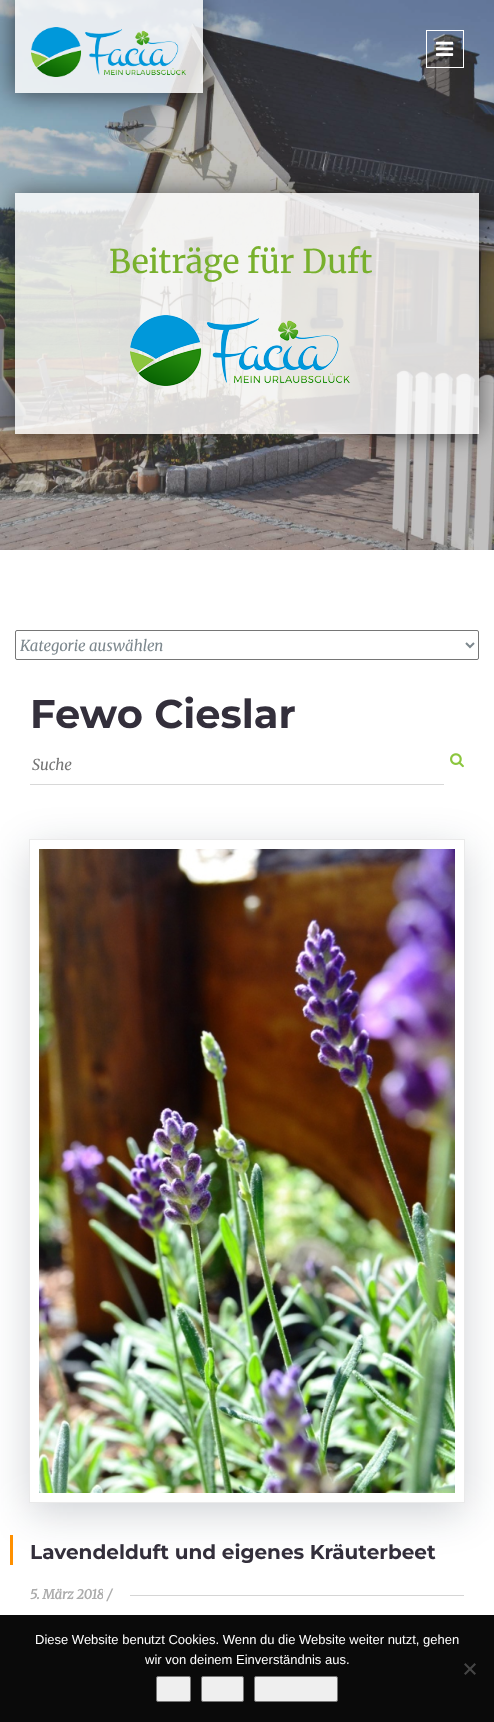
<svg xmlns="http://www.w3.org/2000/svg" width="494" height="1722">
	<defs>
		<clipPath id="clip1"><path d="M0 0H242V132H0ZM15 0H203V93H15Z" clip-rule="evenodd" /></clipPath>
		<clipPath id="clip2"><path d="M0 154H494V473H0ZM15 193H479V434H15Z" clip-rule="evenodd" /></clipPath>
		<clipPath id="clip3"><path d="M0 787H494V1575H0ZM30 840H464V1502H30Z" clip-rule="evenodd" /></clipPath>
	</defs>
	<rect width="100%" height="100%" fill="#FFFFFF" />
	<image x="0" y="0" width="494" height="550" href="assets/img1.png" />
	<rect x="426.5" y="30.5" width="37" height="37" fill="none" stroke="#FFFFFF" />
	<image x="436" y="41" width="18" height="15" href="assets/img2.png" />
	<g clip-path="url(#clip1)">
		<rect x="15" y="0" width="188" height="93" fill="#000000" fill-opacity="0.6" filter="blur(12.5px)" />
	</g>
	<rect x="15" y="0" width="188" height="93" fill="#FFFFFF" fill-opacity="0.82" />
	<image x="31" y="27" width="155" height="50" href="assets/img3.png" />
	<g clip-path="url(#clip2)">
		<rect x="15" y="193" width="464" height="241" fill="#171717" fill-opacity="0.6" filter="blur(12.5px)" />
	</g>
	<rect x="15" y="193" width="464" height="241" fill="#FFFFFF" fill-opacity="0.82" />
	<text x="109" y="273" font-family="Merriweather" font-size="32.5" fill="#78B02D">Beiträge für Duft</text>
	<image x="130" y="315" width="220" height="71" href="assets/img4.png" />
	<rect x="15.5" y="630.5" width="463" height="29" rx="1.5" fill="none" stroke="#767676" />
	<path d="M466 643L470 647L474 643" fill="none" stroke="#7D888E" stroke-width="2" />
	<text x="20" y="651" font-family="Merriweather" font-size="15" font-weight="300" font-style="italic" fill="#7D888E">Kategorie auswählen</text>
	<text x="30" y="728" font-family="Montserrat" font-size="40" font-weight="700" fill="#332F3B">Fewo Cieslar</text>
	<rect x="30" y="784" width="414" height="1" fill="#D8D8D8" />
	<text x="32" y="770" font-family="Merriweather" font-size="15" font-weight="300" font-style="italic" fill="#757575">Suche</text>
	<image x="450" y="753" width="14" height="15" href="assets/img5.png" />
	<g clip-path="url(#clip3)">
		<rect x="30" y="850" width="434" height="662" fill="#091A2C" fill-opacity="0.2" filter="blur(20.5px)" />
	</g>
	<image x="39" y="849" width="416" height="644" href="assets/img6.png" />
	<rect x="29.5" y="839.5" width="435" height="663" fill="none" stroke="#EAEAEA" />
	<rect x="10" y="1535" width="3" height="30" fill="#FF9000" />
	<text x="30" y="1559" font-family="Montserrat" font-size="20" font-weight="700" fill="#332F3B">Lavendelduft und eigenes Kräuterbeet</text>
	<text x="30" y="1599" font-family="Merriweather" font-size="13" font-weight="700" font-style="italic" fill="#ACACAC">5. März 2018 /</text>
	<rect x="103" y="1589" width="1" height="9" fill="#FFFFFF" />
	<rect x="130" y="1595" width="334" height="1" fill="#D5D5D5" />
	<rect x="0" y="1615" width="494" height="107" fill="#0A0A0A" />
	<g font-family="Liberation Sans" font-size="13" fill="#FFFFFF">
		<text x="35" y="1644">Diese Website benutzt Cookies. Wenn du die Website weiter nutzt, gehen</text>
		<text x="145" y="1664">wir von deinem Einverständnis aus.</text>
	</g>
	<path d="M474.5 1663L476 1664.5L465.5 1675L464 1673.5Z" fill="#454545" />
	<path d="M464 1664.5L465.5 1663L476 1673.5L474.5 1675Z" fill="#454545" />
	<rect x="156.5" y="1676.5" width="34" height="25" rx="1.5" fill="#EFEFEF" stroke="#767676" />
	<rect x="201.5" y="1676.5" width="42" height="25" rx="1.5" fill="#EFEFEF" stroke="#767676" />
	<rect x="254.5" y="1676.5" width="83" height="25" rx="1.5" fill="#EFEFEF" stroke="#767676" />
</svg>
